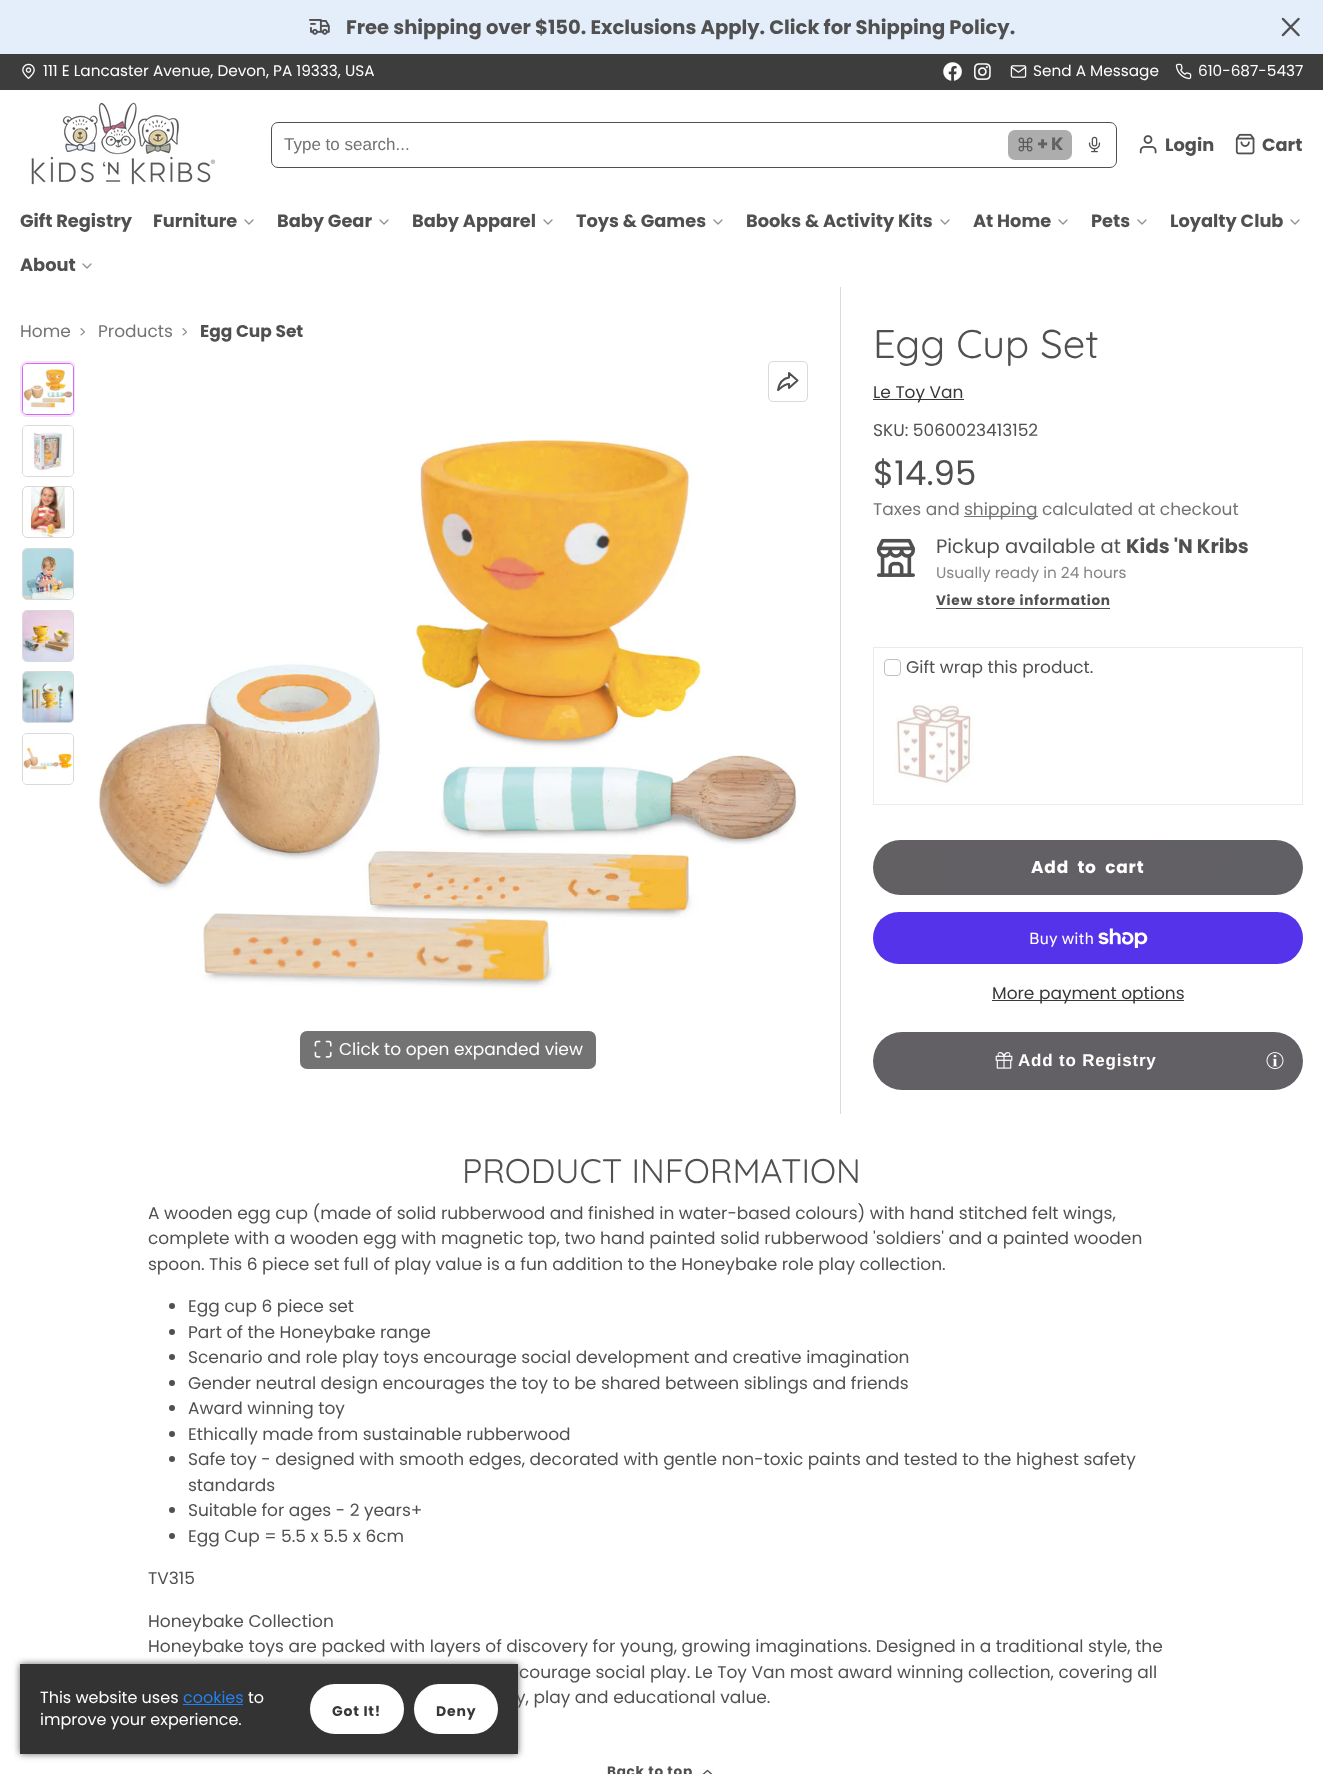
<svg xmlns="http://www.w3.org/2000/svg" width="1323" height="1774">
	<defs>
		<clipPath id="clip1"><rect x="20" y="361" width="55" height="721" /></clipPath>
		<linearGradient id="g1" gradientUnits="userSpaceOnUse" x1="901" y1="780" x2="1275" y2="955"><stop offset="0" stop-color="#636064" /><stop offset="1" stop-color="#616064" /></linearGradient>
	</defs>
	<rect width="100%" height="100%" fill="#FFFFFF" />
	<rect x="0" y="0" width="1323" height="54" fill="#E4EEFA" />
	<image x="309" y="19" width="21" height="16" href="assets/img1.png" />
	<text x="346" y="34" font-family="Poppins" font-size="19.55" font-weight="700" fill="#505050">Free shipping over $150. Exclusions Apply. Click for Shipping Policy.</text>
	<path d="M1298.5 19L1283 35M1283 19L1298.5 35" fill="none" stroke="#505050" stroke-width="2.5" stroke-linecap="round" stroke-linejoin="round" />
	<rect x="0" y="54" width="1323" height="36" fill="#3D3D3D" />
	<image x="22" y="63" width="13" height="16" href="assets/img2.png" />
	<text x="43" y="76" font-family="Poppins" font-size="15.3" fill="#FFFFFF">111 E Lancaster Avenue, Devon, PA 19333, USA</text>
	<image x="943" y="62" width="19" height="19" href="assets/img3.png" />
	<image x="974" y="63" width="17" height="17" href="assets/img4.png" />
	<image x="1010" y="65" width="17" height="13" href="assets/img5.png" />
	<text x="1033" y="76" font-family="Poppins" font-size="15.3" fill="#FFFFFF">Send A Message</text>
	<image x="1175" y="63" width="17" height="17" href="assets/img6.png" />
	<text x="1198" y="76" font-family="Poppins" font-size="15.3" fill="#FFFFFF">610-687-5437</text>
	<image x="31" y="102" width="185" height="83" href="assets/img7.png" />
	<rect x="271.5" y="122.5" width="845" height="45" rx="6.5" fill="none" stroke="#505050" />
	<text x="284" y="150" font-family="Liberation Sans" font-size="17" fill="#737373">Type to search...</text>
	<rect x="1008" y="130" width="64" height="30" rx="7" fill="#ADADAD" />
	<image x="1018" y="137" width="15" height="15" href="assets/img8.png" />
	<g font-family="Poppins" font-size="17.8" font-weight="700" fill="#626262">
		<text x="1037" y="150">+</text>
		<text x="1051" y="150">K</text>
	</g>
	<image x="1088" y="136" width="13" height="17" href="assets/img9.png" />
	<image x="1139" y="135" width="18" height="19" href="assets/img10.png" />
	<text x="1165" y="151" font-family="Poppins" font-size="17.8" font-weight="700" fill="#505050">Login</text>
	<image x="1235" y="133" width="20" height="22" href="assets/img11.png" />
	<g font-family="Poppins" font-size="17.8" font-weight="700" fill="#505050">
		<text x="1262" y="151">Cart</text>
		<text x="20" y="227">Gift Registry</text>
		<text x="153" y="227">Furniture</text>
	</g>
	<path d="M245 220L249 224L253 220" fill="none" stroke="#8F8F8F" stroke-width="1.3" stroke-linecap="round" stroke-linejoin="round" />
	<text x="277" y="227" font-family="Poppins" font-size="17.8" font-weight="700" fill="#505050">Baby Gear</text>
	<path d="M380 220L384 224L388 220" fill="none" stroke="#8F8F8F" stroke-width="1.3" stroke-linecap="round" stroke-linejoin="round" />
	<text x="412" y="227" font-family="Poppins" font-size="17.8" font-weight="700" fill="#505050">Baby Apparel</text>
	<path d="M544 220L548 224L552 220" fill="none" stroke="#8F8F8F" stroke-width="1.3" stroke-linecap="round" stroke-linejoin="round" />
	<text x="576" y="227" font-family="Poppins" font-size="17.8" font-weight="700" fill="#505050">Toys &amp; Games</text>
	<path d="M714 220L718 224L722 220" fill="none" stroke="#8F8F8F" stroke-width="1.3" stroke-linecap="round" stroke-linejoin="round" />
	<text x="746" y="227" font-family="Poppins" font-size="17.8" font-weight="700" fill="#505050">Books &amp; Activity Kits</text>
	<path d="M941 220L945 224L949 220" fill="none" stroke="#8F8F8F" stroke-width="1.3" stroke-linecap="round" stroke-linejoin="round" />
	<text x="973" y="227" font-family="Poppins" font-size="17.8" font-weight="700" fill="#505050">At Home</text>
	<path d="M1059 220L1063 224L1067 220" fill="none" stroke="#8F8F8F" stroke-width="1.3" stroke-linecap="round" stroke-linejoin="round" />
	<text x="1091" y="227" font-family="Poppins" font-size="17.8" font-weight="700" fill="#505050">Pets</text>
	<path d="M1138 220L1142 224L1146 220" fill="none" stroke="#8F8F8F" stroke-width="1.3" stroke-linecap="round" stroke-linejoin="round" />
	<text x="1170" y="227" font-family="Poppins" font-size="17.8" font-weight="700" fill="#505050">Loyalty Club</text>
	<path d="M1291 220L1295 224L1299 220" fill="none" stroke="#8F8F8F" stroke-width="1.3" stroke-linecap="round" stroke-linejoin="round" />
	<text x="20" y="271" font-family="Poppins" font-size="17.8" font-weight="700" fill="#505050">About</text>
	<path d="M83 264L87 268L91 264" fill="none" stroke="#8F8F8F" stroke-width="1.3" stroke-linecap="round" stroke-linejoin="round" />
	<rect x="840" y="287" width="1" height="827" fill="#D9D9D9" />
	<text x="20" y="337" font-family="Poppins" font-size="17" fill="#737373">Home</text>
	<path d="M81 335L84.5 332L81 328.5" fill="none" stroke="#8F8F8F" stroke-width="1.1" stroke-linecap="round" stroke-linejoin="round" />
	<text x="98" y="337" font-family="Poppins" font-size="17" fill="#737373">Products</text>
	<path d="M183 335L186.5 332L183 328.5" fill="none" stroke="#8F8F8F" stroke-width="1.1" stroke-linecap="round" stroke-linejoin="round" />
	<text x="200" y="337" font-family="Poppins" font-size="17" font-weight="700" fill="#505050">Egg Cup Set</text>
	<g clip-path="url(#clip1)">
		<rect x="21" y="362" width="54" height="54" rx="6" fill="none" stroke="#F6E1FC" stroke-width="2" />
	</g>
	<rect x="22.5" y="363.5" width="51" height="51" rx="4.5" fill="none" stroke="#D36BF1" />
	<image x="23" y="364" width="50" height="50" href="assets/img12.png" />
	<rect x="22.5" y="425.5" width="51" height="51" rx="4.5" fill="none" stroke="#D9D9D9" />
	<image x="23" y="426" width="50" height="50" href="assets/img13.png" />
	<rect x="22.5" y="486.5" width="51" height="51" rx="4.5" fill="none" stroke="#D9D9D9" />
	<image x="31" y="487" width="34" height="50" href="assets/img14.png" />
	<rect x="22.5" y="548.5" width="51" height="51" rx="4.5" fill="none" stroke="#D9D9D9" />
	<image x="23" y="549" width="50" height="50" href="assets/img15.png" />
	<rect x="22.5" y="610.5" width="51" height="51" rx="4.5" fill="none" stroke="#D9D9D9" />
	<image x="23" y="611" width="50" height="50" href="assets/img16.png" />
	<rect x="22.5" y="671.5" width="51" height="51" rx="4.5" fill="none" stroke="#D9D9D9" />
	<image x="23" y="672" width="50" height="50" href="assets/img17.png" />
	<rect x="22.5" y="733.5" width="51" height="51" rx="4.5" fill="none" stroke="#D9D9D9" />
	<image x="23" y="734" width="50" height="50" href="assets/img18.png" />
	<rect x="768.5" y="361.5" width="39" height="40" rx="4.5" fill="none" stroke="#D9D9D9" />
	<path d="M789 373V377.5C782 378.5 779 384.5 778 390C778 390.5 784 384 789 384V388L797.5 380.5Z" fill="none" stroke="#505050" stroke-width="2" stroke-linecap="round" stroke-linejoin="round" />
	<image x="98" y="439" width="701" height="549" href="assets/img19.png" />
	<rect x="300" y="1031" width="296" height="38" rx="7" fill="#737373" />
	<image x="314" y="1040" width="18" height="18" href="assets/img20.png" />
	<text x="339" y="1055" font-family="Poppins" font-size="17" fill="#FFFFFF">Click to open expanded view</text>
	<text x="873" y="358" font-family="Quicksand" font-size="40" fill="#505050">Egg Cup Set</text>
	<rect x="873" y="399" width="91" height="1" fill="#383838" />
	<text x="873" y="398" font-family="Poppins" font-size="17" fill="#383838">Le Toy Van</text>
	<text x="873" y="436" font-family="Poppins" font-size="17" fill="#505050">SKU: 5060023413152</text>
	<text x="873" y="485" font-family="Poppins" font-size="34" fill="#505050">$14.95</text>
	<text x="873" y="515" font-family="Poppins" font-size="17" fill="#737373">Taxes and</text>
	<rect x="964" y="516" width="74" height="1" fill="#737373" />
	<text x="964" y="515" font-family="Poppins" font-size="17" fill="#737373">shipping calculated at checkout</text>
	<image x="876" y="538" width="39" height="39" href="assets/img21.png" />
	<text x="936" y="553" font-family="Poppins" font-size="19.55" fill="#505050">Pickup available at</text>
	<text x="1126" y="553" font-family="Poppins" font-size="19.55" font-weight="700" fill="#505050">Kids 'N Kribs</text>
	<text x="936" y="578" font-family="Poppins" font-size="15.3" fill="#858585">Usually ready in 24 hours</text>
	<text x="936" y="605" font-family="Poppins" font-size="13.6" font-weight="700" letter-spacing="0.7" fill="#505050">View store information</text>
	<rect x="936" y="608" width="174" height="1" fill="#505050" />
	<rect x="873.5" y="647.5" width="429" height="157" fill="none" stroke="#EBEBEB" />
	<rect x="884.5" y="659.5" width="16" height="16" rx="3.5" fill="none" stroke="#BDC1C6" />
	<text x="906" y="673" font-family="Poppins" font-size="17" fill="#505050">Gift wrap this product.</text>
	<image x="895" y="704" width="79" height="81" href="assets/img22.png" />
	<rect x="873" y="840" width="430" height="55" rx="27.5" fill="url(#g1)" />
	<text x="1031" y="873" word-spacing="4" font-family="Poppins" font-size="17" font-weight="700" letter-spacing="0.8" fill="#FFFFFF">Add to cart</text>
	<rect x="873" y="912" width="430" height="52" rx="26" fill="#5433EB" />
	<text x="1029" y="944" font-family="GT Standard" font-size="16" fill="#FFFFFF">Buy with</text>
	<image x="1098" y="928" width="50" height="20" href="assets/img23.png" />
	<rect x="992" y="1000" width="192" height="1" fill="#383838" />
	<text x="992" y="999" font-family="Poppins" font-size="17" fill="#383838">More payment options</text>
	<rect x="873" y="1032" width="430" height="58" rx="29" fill="#626064" />
	<image x="995" y="1052" width="18" height="17" href="assets/img24.png" />
	<text x="1018" y="1066" font-family="Liberation Sans" font-size="17" font-weight="700" letter-spacing="0.8" fill="#FFFFFF">Add to Registry</text>
	<image x="1266" y="1052" width="18" height="17" href="assets/img25.png" />
	<text x="462" y="1183" font-family="Quicksand" font-size="34" fill="#505050">PRODUCT INFORMATION</text>
	<g font-family="Poppins" font-size="17" fill="#505050">
		<text x="148" y="1219">A wooden egg cup (made of solid rubberwood and finished in water-based colours) with hand stitched felt wings,</text>
		<text x="148" y="1244">complete with a wooden egg with magnetic top, two hand painted solid rubberwood 'soldiers' and a painted wooden</text>
		<text x="148" y="1270">spoon. This 6 piece set full of play value is a fun addition to the Honeybake role play collection.</text>
	</g>
	<circle cx="172" cy="1306" r="3" fill="#505050" />
	<text x="188" y="1312" font-family="Poppins" font-size="17" fill="#505050">Egg cup 6 piece set</text>
	<circle cx="172" cy="1332" r="3" fill="#505050" />
	<text x="188" y="1338" font-family="Poppins" font-size="17" fill="#505050">Part of the Honeybake range</text>
	<circle cx="172" cy="1357" r="3" fill="#505050" />
	<text x="188" y="1363" font-family="Poppins" font-size="17" fill="#505050">Scenario and role play toys encourage social development and creative imagination</text>
	<circle cx="172" cy="1383" r="3" fill="#505050" />
	<text x="188" y="1389" font-family="Poppins" font-size="17" fill="#505050">Gender neutral design encourages the toy to be shared between siblings and friends</text>
	<circle cx="172" cy="1408" r="3" fill="#505050" />
	<text x="188" y="1414" font-family="Poppins" font-size="17" fill="#505050">Award winning toy</text>
	<circle cx="172" cy="1434" r="3" fill="#505050" />
	<text x="188" y="1440" font-family="Poppins" font-size="17" fill="#505050">Ethically made from sustainable rubberwood</text>
	<circle cx="172" cy="1459" r="3" fill="#505050" />
	<g font-family="Poppins" font-size="17" fill="#505050">
		<text x="188" y="1465">Safe toy - designed with smooth edges, decorated with gentle non-toxic paints and tested to the highest safety</text>
		<text x="188" y="1491">standards</text>
	</g>
	<circle cx="172" cy="1510" r="3" fill="#505050" />
	<text x="188" y="1516" font-family="Poppins" font-size="17" fill="#505050">Suitable for ages - 2 years+</text>
	<circle cx="172" cy="1536" r="3" fill="#505050" />
	<g font-family="Poppins" font-size="17" fill="#505050">
		<text x="188" y="1542">Egg Cup = 5.5 x 5.5 x 6cm</text>
		<text x="148" y="1584">TV315</text>
		<text x="148" y="1627">Honeybake Collection</text>
		<text x="148" y="1652">Honeybake toys are packed with layers of discovery for young, growing imaginations. Designed in a traditional style, the</text>
		<text x="519" y="1678">courage social play. Le Toy Van most award winning collection, covering all</text>
		<text x="516" y="1703">y, play and educational value.</text>
	</g>
	<text x="607" y="1776" font-family="Poppins" font-size="13.6" font-weight="700" letter-spacing="0.7" fill="#505050">Back to top</text>
	<path d="M712 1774.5L707.5 1770.5L703 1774.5" fill="none" stroke="#505050" stroke-width="1.3" stroke-linecap="round" stroke-linejoin="round" />
	<rect x="20" y="1664" width="498" height="90" fill="#666666" filter="blur(3.5px)" />
	<rect x="20" y="1664" width="498" height="90" fill="#333333" />
	<text x="40" y="1703" font-family="Poppins" font-size="16" fill="#FFFFFF">This website uses</text>
	<text x="183" y="1703" font-family="Poppins" font-size="16" fill="#2680EB">cookies</text>
	<rect x="183" y="1704" width="60" height="1" fill="#2680EB" />
	<g font-family="Poppins" font-size="16" fill="#FFFFFF">
		<text x="248" y="1703">to</text>
		<text x="40" y="1725">improve your experience.</text>
	</g>
	<rect x="311" y="1685" width="92" height="48" rx="24" fill="#FFFFFF" stroke="#FFFFFF" stroke-width="2" />
	<text x="332" y="1716" font-family="Poppins" font-size="14" font-weight="700" letter-spacing="0.8" fill="#383838">Got It!</text>
	<rect x="415" y="1685" width="82" height="48" rx="24" fill="#FFFFFF" stroke="#FFFFFF" stroke-width="2" />
	<text x="436" y="1716" font-family="Poppins" font-size="14" font-weight="700" letter-spacing="0.8" fill="#383838">Deny</text>
</svg>
